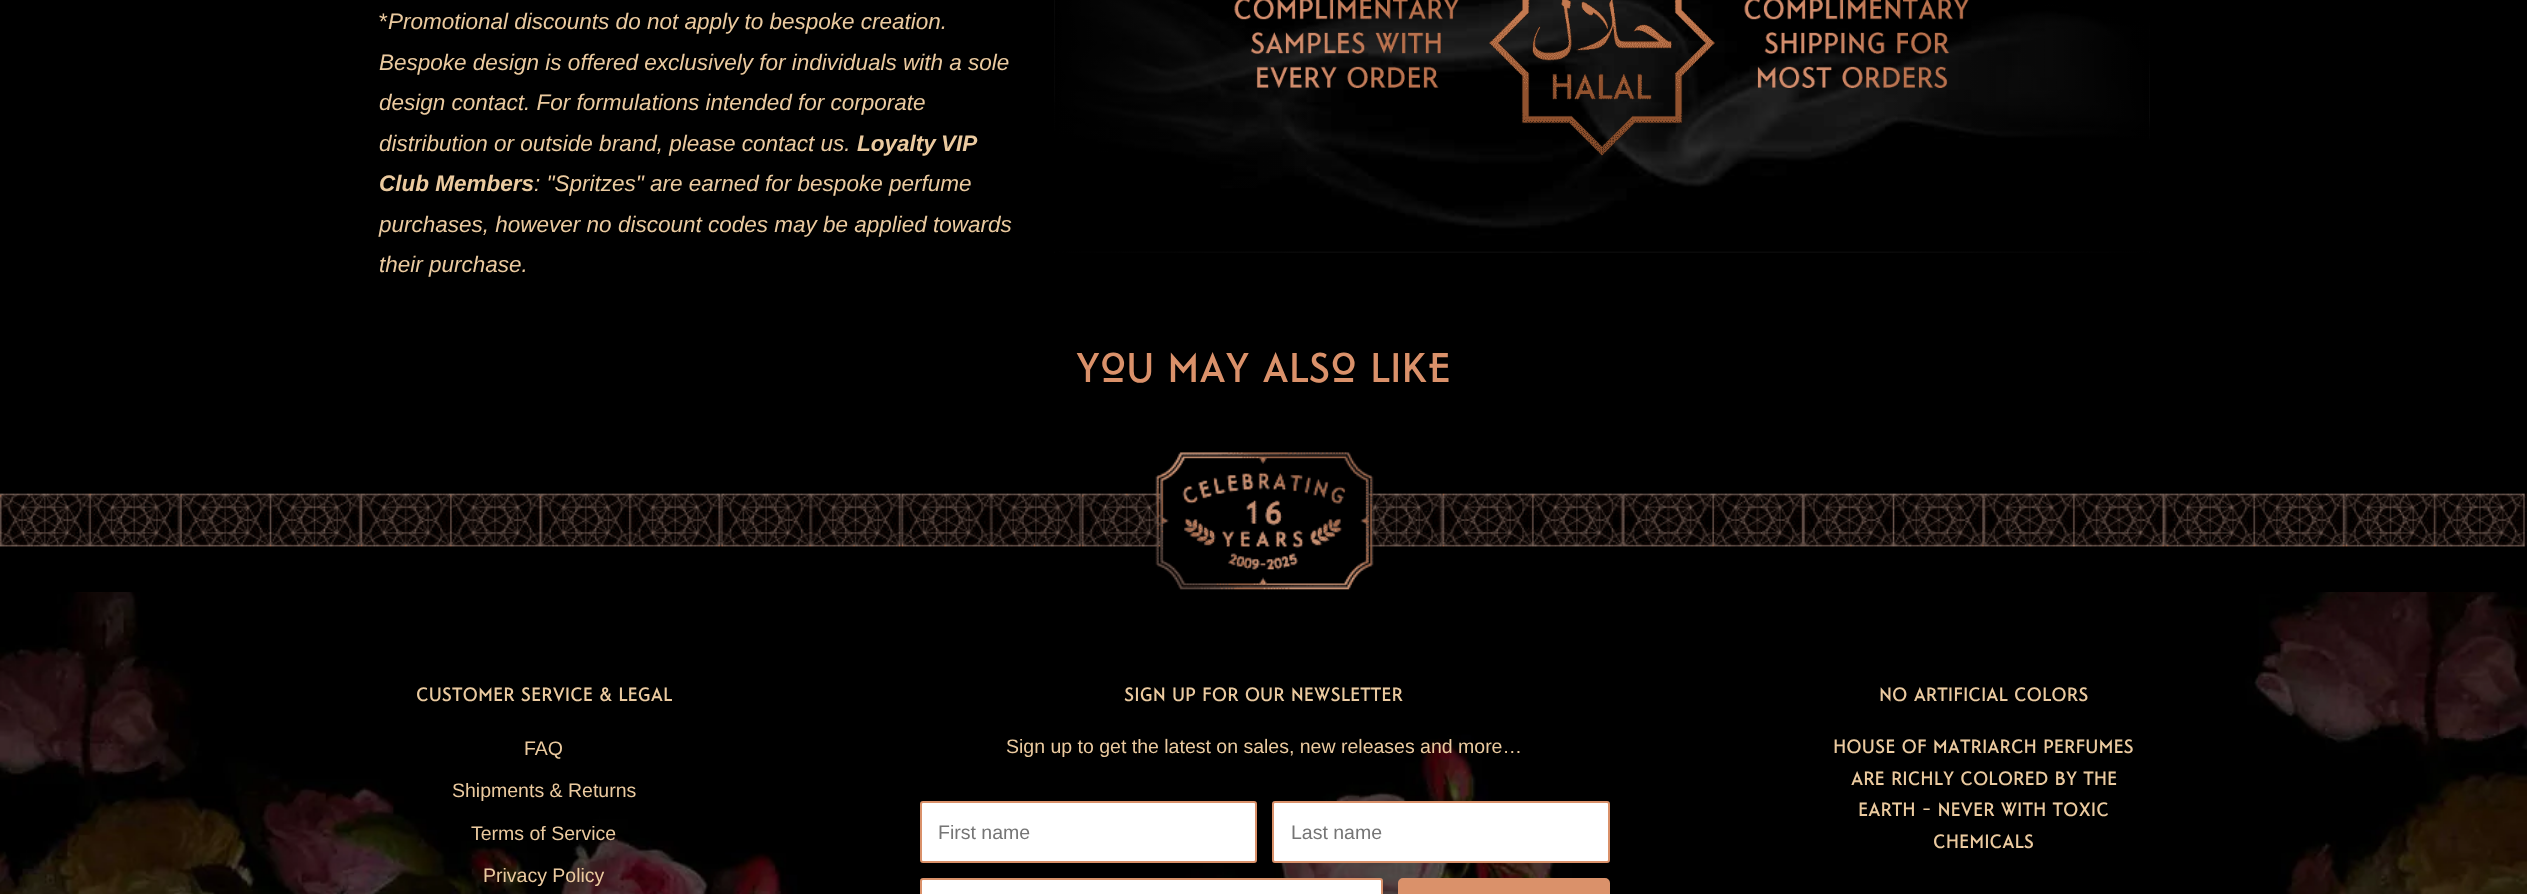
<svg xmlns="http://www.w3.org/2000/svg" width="2527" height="894">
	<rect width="100%" height="100%" fill="#000000" />
	<image x="0" y="592" width="2527" height="302" href="assets/img1.png" />
	<text x="379" y="29" font-family="Liberation Sans" font-size="22.5" fill="#EBCA9F">*</text>
	<g font-family="Liberation Sans" font-size="22.5" font-style="italic" fill="#EBCA9F">
		<text x="388" y="29">Promotional discounts do not apply to bespoke creation.</text>
		<text x="379" y="70">Bespoke design is offered exclusively for individuals with a sole</text>
		<text x="379" y="110">design contact. For formulations intended for corporate</text>
		<text x="379" y="151">distribution or outside brand, please contact us.</text>
	</g>
	<g font-family="Liberation Sans" font-size="22.5" font-weight="700" font-style="italic" fill="#EBCA9F">
		<text x="857" y="151" word-spacing="-1">Loyalty VIP</text>
		<text x="379" y="191">Club Members</text>
	</g>
	<g font-family="Liberation Sans" font-size="22.5" font-style="italic" fill="#EBCA9F">
		<text x="534" y="191">: "Spritzes" are earned for bespoke perfume</text>
		<text x="379" y="232">purchases, however no discount codes may be applied towards</text>
		<text x="379" y="272">their purchase.</text>
	</g>
	<image x="1054" y="0" width="1096" height="241" href="assets/img3.png" />
	<image x="1054" y="0" width="1096" height="253" href="assets/img2.png" />
	<image x="1234" y="0" width="225" height="88" href="assets/img4.png" />
	<image x="1489" y="0" width="226" height="156" href="assets/img5.png" />
	<image x="1744" y="0" width="225" height="88" href="assets/img6.png" />
	<text x="1076" y="382" font-family="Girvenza" font-size="45" fill="#DA916A">YOU MAY ALSO LIKE</text>
	<image x="0" y="452" width="2527" height="140" href="assets/img7.png" />
	<text x="416" y="701" font-family="'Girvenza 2'" font-size="21" fill="#EBCA9F">CUSTOMER SERVICE &amp; LEGAL</text>
	<g font-family="Liberation Sans" font-size="19.5" fill="#EBCA9F">
		<text x="524" y="755">FAQ</text>
		<text x="452" y="797">Shipments &amp; Returns</text>
		<text x="471" y="840">Terms of Service</text>
		<text x="483" y="882">Privacy Policy</text>
	</g>
	<text x="1124" y="701" font-family="'Girvenza 2'" font-size="21" fill="#EBCA9F">SIGN UP FOR OUR NEWSLETTER</text>
	<text x="1006" y="753" font-family="Liberation Sans" font-size="19.5" fill="#EBCA9F">Sign up to get the latest on sales, new releases and more…</text>
	<rect x="921" y="802" width="335" height="60" rx="2" fill="#FFFFFF" stroke="#DA916A" stroke-width="2" />
	<text x="938" y="839" font-family="Liberation Sans" font-size="19.5" fill="#757575">First name</text>
	<rect x="1273" y="802" width="336" height="60" rx="2" fill="#FFFFFF" stroke="#DA916A" stroke-width="2" />
	<text x="1291" y="839" font-family="Liberation Sans" font-size="19.5" fill="#757575">Last name</text>
	<rect x="921" y="879" width="461" height="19" rx="2" fill="#FFFFFF" stroke="#DA916A" stroke-width="2" />
	<rect x="1399" y="879" width="210" height="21" rx="4" fill="#DA916A" stroke="#DA916A" stroke-width="2" />
	<g font-family="'Girvenza 2'" font-size="21" fill="#EBCA9F">
		<text x="1879" y="701">NO ARTIFICIAL COLORS</text>
		<text x="1833" y="753">HOUSE OF MATRIARCH PERFUMES</text>
		<text x="1851" y="785">ARE RICHLY COLORED BY THE</text>
		<text x="1858" y="816">EARTH - NEVER WITH TOXIC</text>
		<text x="1933" y="848">CHEMICALS</text>
	</g>
</svg>
